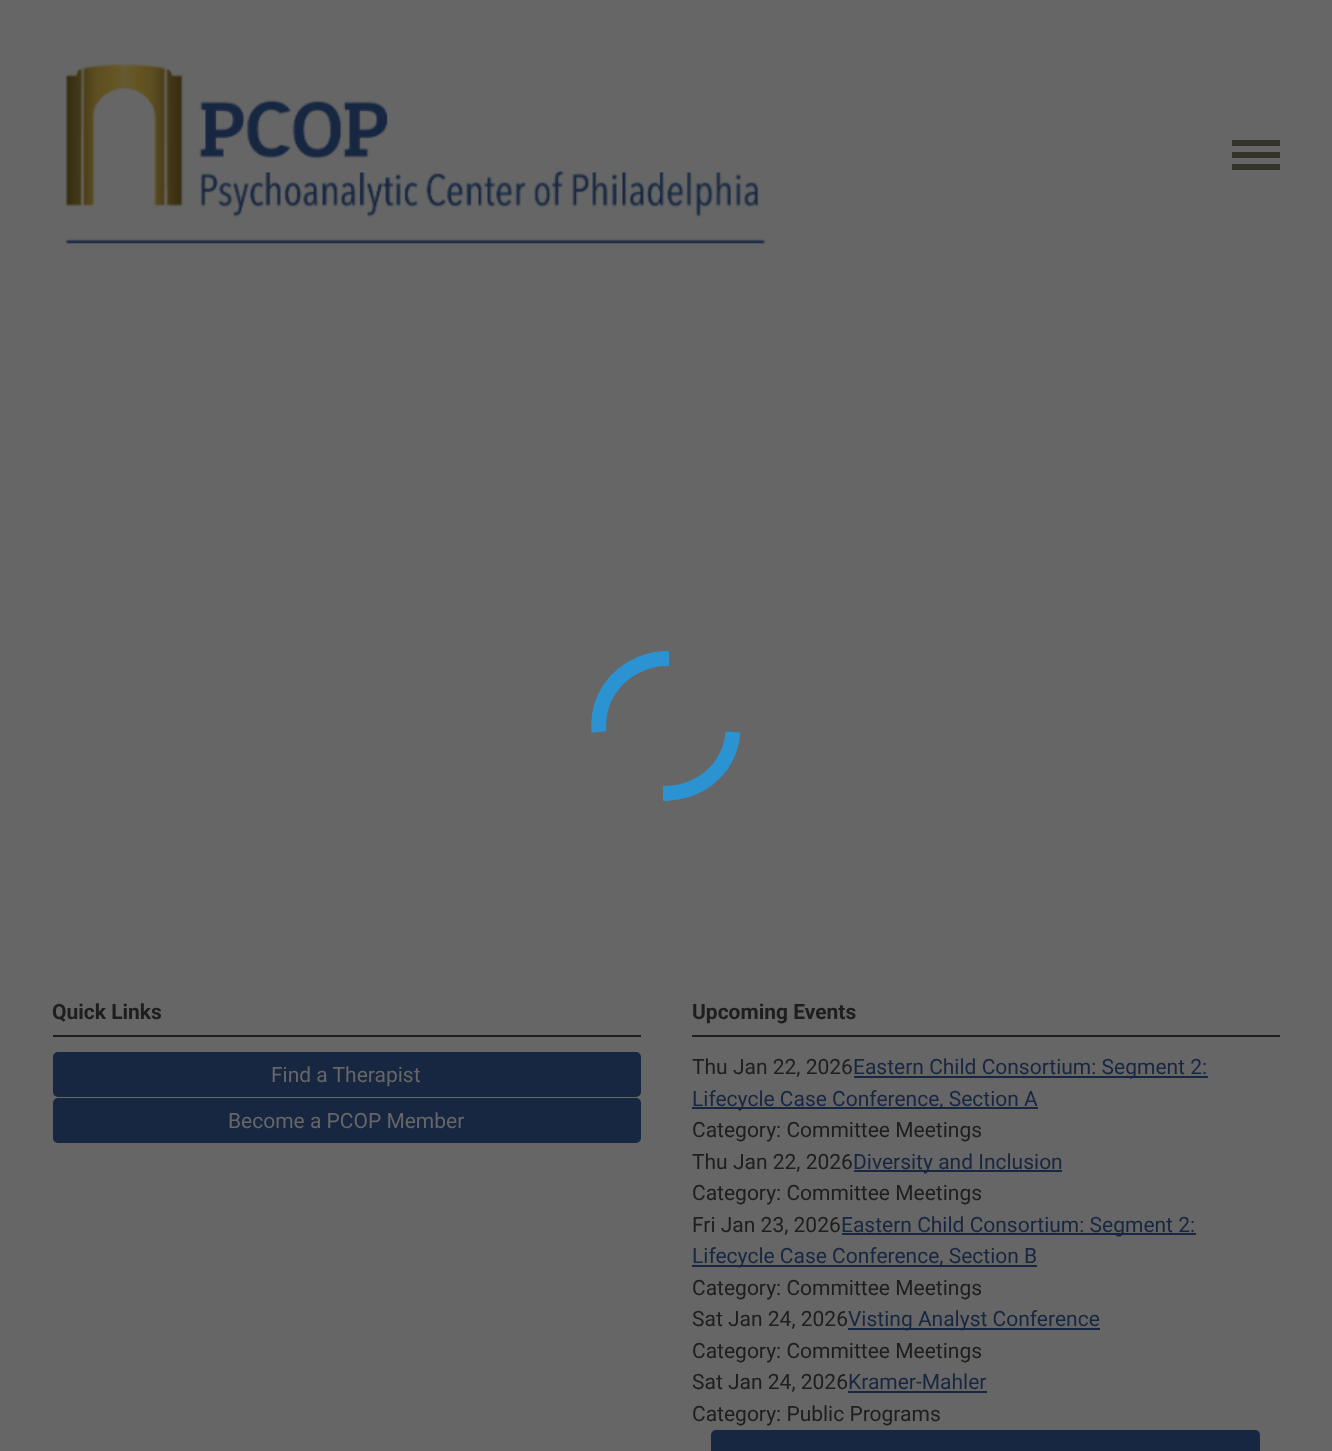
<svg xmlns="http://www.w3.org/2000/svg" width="1332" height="1451">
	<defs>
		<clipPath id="clip1"><rect x="591" y="651" width="75" height="150" /></clipPath>
		<clipPath id="clip2"><path d="M598 807.5L584.5 658L734 644.5L747.5 794Z" /></clipPath>
		<clipPath id="clip3"><rect x="663" y="651" width="8" height="150" /></clipPath>
		<clipPath id="clip4"><rect x="666" y="651" width="75" height="150" /></clipPath>
		<clipPath id="clip5"><path d="M747.5 658L734 807.5L584.5 794L598 644.5Z" /></clipPath>
	</defs>
	<rect width="100%" height="100%" fill="#666666" />
	<image x="65" y="63" width="701" height="182" href="assets/img1.png" />
	<path d="M1232 140H1280V146H1232ZM1232 152H1280V158H1232ZM1232 164H1280V170H1232Z" fill="#34332A" />
	<g clip-path="url(#clip1)">
		<g clip-path="url(#clip2)">
			<path d="M599 732C593 666 677 632 718.5 683.5C727 694 732 707 733 720" fill="none" stroke="#2B93D1" stroke-width="15" />
		</g>
	</g>
	<g clip-path="url(#clip3)">
		<path d="M669 793.5C603 793.5 576.5 707 631.5 670C642.5 662.5 655.5 658.5 669 658.5" fill="none" stroke="#2B93D1" stroke-width="15" />
	</g>
	<g clip-path="url(#clip4)">
		<g clip-path="url(#clip5)">
			<path d="M733 732C727.5 798 639 816.5 607 758.5C600.5 747 597.5 733.5 599 720" fill="none" stroke="#2B93D1" stroke-width="15" />
		</g>
	</g>
	<rect x="53" y="1035" width="588" height="2" fill="#1E1E1E" />
	<text x="52" y="1019" font-family="Roboto" font-size="21" font-weight="700" fill="#1E1E1E">Quick Links</text>
	<rect x="53" y="1052" width="588" height="45" rx="5" fill="#182741" />
	<text x="271" y="1082" font-family="Roboto" font-size="21" fill="#666666">Find a Therapist</text>
	<rect x="53" y="1098" width="588" height="45" rx="5" fill="#182741" />
	<text x="228" y="1128" font-family="Roboto" font-size="21" fill="#666666">Become a PCOP Member</text>
	<rect x="692" y="1035" width="588" height="2" fill="#1E1E1E" />
	<text x="692" y="1019" font-family="Roboto" font-size="21" font-weight="700" fill="#1E1E1E">Upcoming Events</text>
	<text x="692" y="1074" font-family="Roboto" font-size="21" fill="#1E1E1E">Thu Jan 22, 2026</text>
	<rect x="854" y="1076" width="354" height="2" fill="#182741" />
	<text x="853" y="1074" font-family="Roboto" font-size="21" fill="#182741">Eastern Child Consortium: Segment 2:</text>
	<rect x="692" y="1107" width="346" height="2" fill="#182741" />
	<text x="692" y="1106" font-family="Roboto" font-size="21" fill="#182741">Lifecycle Case Conference, Section A</text>
	<g font-family="Roboto" font-size="21" fill="#1E1E1E">
		<text x="692" y="1137">Category: Committee Meetings</text>
		<text x="692" y="1169">Thu Jan 22, 2026</text>
	</g>
	<rect x="854" y="1170" width="208" height="2" fill="#182741" />
	<text x="853" y="1169" font-family="Roboto" font-size="21" fill="#182741">Diversity and Inclusion</text>
	<g font-family="Roboto" font-size="21" fill="#1E1E1E">
		<text x="692" y="1200">Category: Committee Meetings</text>
		<text x="692" y="1232">Fri Jan 23, 2026</text>
	</g>
	<rect x="842" y="1233" width="354" height="2" fill="#182741" />
	<text x="841" y="1232" font-family="Roboto" font-size="21" fill="#182741">Eastern Child Consortium: Segment 2:</text>
	<rect x="692" y="1265" width="345" height="2" fill="#182741" />
	<text x="692" y="1263" font-family="Roboto" font-size="21" fill="#182741">Lifecycle Case Conference, Section B</text>
	<g font-family="Roboto" font-size="21" fill="#1E1E1E">
		<text x="692" y="1295">Category: Committee Meetings</text>
		<text x="692" y="1326">Sat Jan 24, 2026</text>
	</g>
	<rect x="848" y="1328" width="252" height="2" fill="#182741" />
	<text x="848" y="1326" font-family="Roboto" font-size="21" fill="#182741">Visting Analyst Conference</text>
	<g font-family="Roboto" font-size="21" fill="#1E1E1E">
		<text x="692" y="1358">Category: Committee Meetings</text>
		<text x="692" y="1389">Sat Jan 24, 2026</text>
	</g>
	<text x="848" y="1389" font-family="Roboto" font-size="21" fill="#182741">Kramer-Mahler</text>
	<rect x="848" y="1391" width="139" height="2" fill="#182741" />
	<text x="692" y="1421" font-family="Roboto" font-size="21" fill="#1E1E1E">Category: Public Programs</text>
	<rect x="711" y="1430" width="549" height="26" rx="5" fill="#182741" />
</svg>
